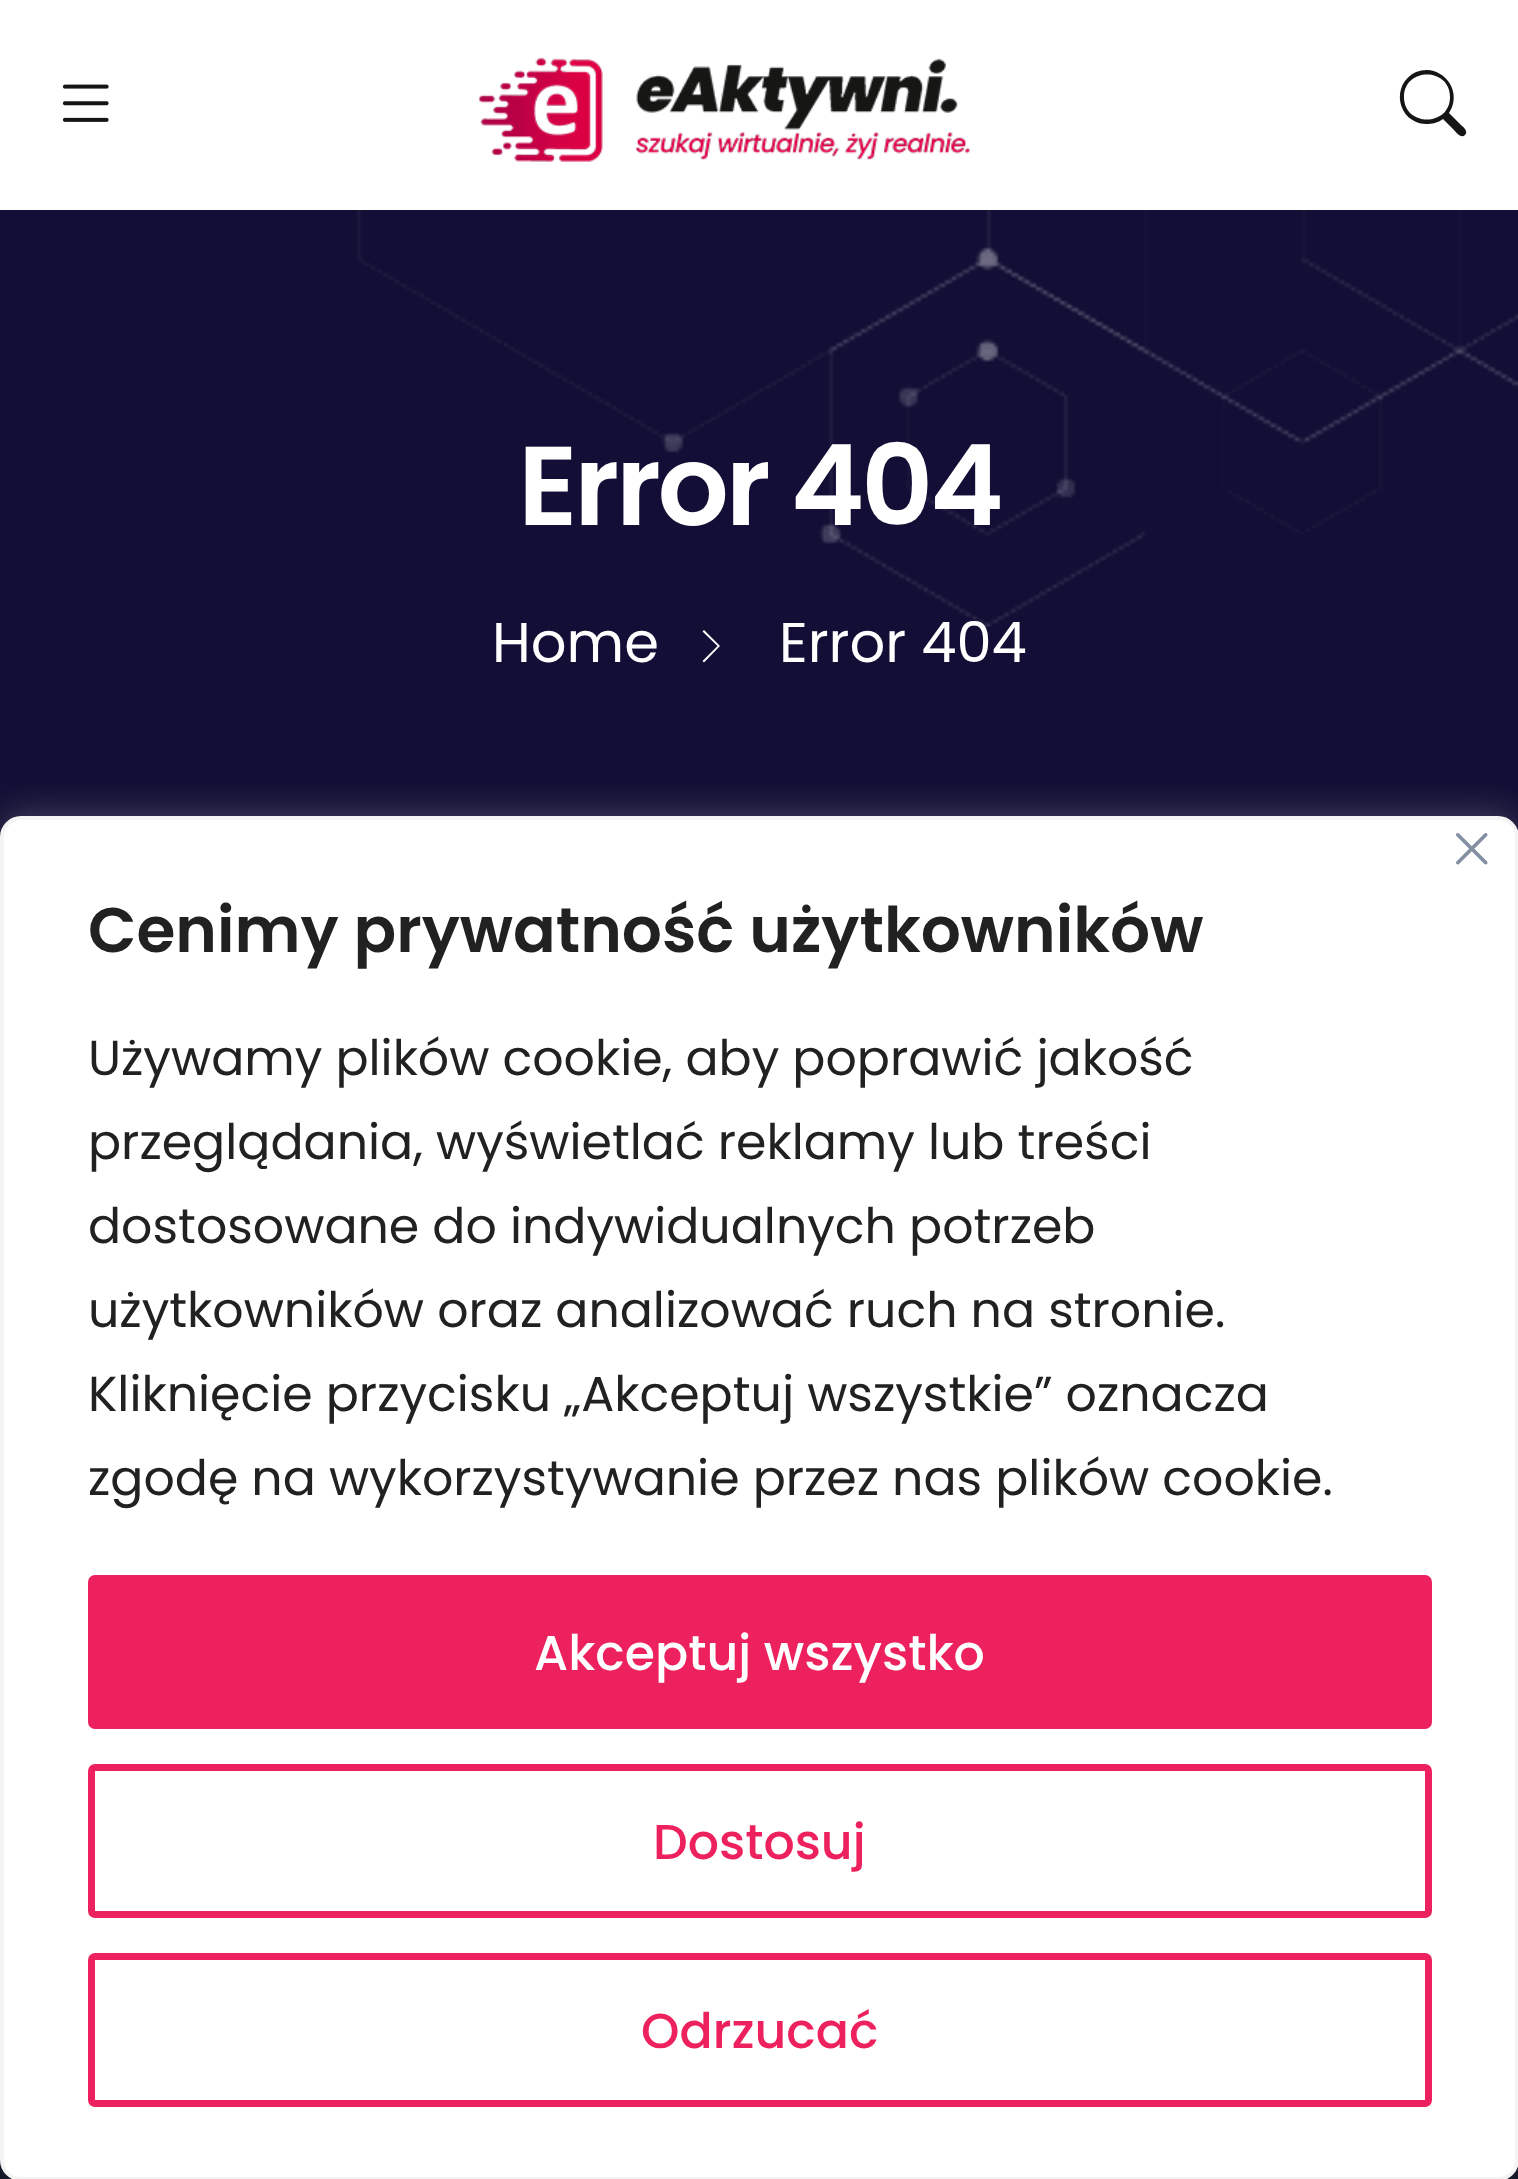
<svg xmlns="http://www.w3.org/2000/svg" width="1518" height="2179">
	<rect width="100%" height="100%" fill="#FFFFFF" />
	<image x="62" y="84" width="47" height="38" href="assets/img1.png" />
	<image x="479" y="57" width="491" height="105" href="assets/img2.png" />
	<path d="M1449 113C1458 100 1454 82 1440 74C1433 69 1424 69 1416 72C1390 84 1397 123 1426 124C1432 124 1438 123 1443 119L1454 130C1456 132 1461 139 1465 135C1469 131 1462 126 1460 124ZM1450 97C1450 127 1404 127 1404 97C1404 67 1450 67 1450 97Z" fill="#151515" />
	<rect x="0" y="210" width="1518" height="627" fill="#120E35" />
	<image x="357" y="210" width="1161" height="417" href="assets/img3.png" />
	<text x="518" y="525" font-family="Poppins" font-size="112" font-weight="600" letter-spacing="-3.5" fill="#FFFFFF">Error 404</text>
	<text x="492" y="662" font-family="Poppins" font-size="56" fill="#FFFFFF">Home</text>
	<path d="M720 646L704 662.5L702.5 661L717.5 646L702.5 631.5L704 630Z" fill="#FFFFFF" />
	<text x="779" y="662" font-family="Poppins" font-size="56" fill="#FFFFFF">Error 404</text>
	<rect x="0" y="2160" width="1518" height="19" fill="#080C1F" />
	<rect x="0" y="812" width="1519" height="1365" rx="21" fill="#ACABAB" fill-opacity="0.3" filter="blur(17.5px)" />
	<rect x="2" y="818" width="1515" height="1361" rx="19" fill="#FFFFFF" stroke="#F4F4F4" stroke-width="4" />
	<image x="1456" y="833" width="32" height="32" href="assets/img4.png" />
	<text x="88" y="952" font-family="Poppins" font-size="63" font-weight="600" fill="#212121">Cenimy prywatność użytkowników</text>
	<g font-family="Poppins" font-size="49" fill="#212121">
		<text x="88" y="1075">Używamy plików cookie, aby poprawić jakość</text>
		<text x="88" y="1159">przeglądania, wyświetlać reklamy lub treści</text>
		<text x="88" y="1243">dostosowane do indywidualnych potrzeb</text>
		<text x="88" y="1327">użytkowników oraz analizować ruch na stronie.</text>
		<text x="88" y="1411">Kliknięcie przycisku „Akceptuj wszystkie” oznacza</text>
		<text x="88" y="1495">zgodę na wykorzystywanie przez nas plików cookie.</text>
	</g>
	<rect x="91.5" y="1578.5" width="1337" height="147" rx="3.5" fill="#ED215E" stroke="#ED215E" stroke-width="7" />
	<text x="534" y="1670" font-family="Poppins" font-size="49" font-weight="500" fill="#FFFFFF">Akceptuj wszystko</text>
	<rect x="91.5" y="1767.5" width="1337" height="147" rx="3.5" fill="none" stroke="#ED215E" stroke-width="7" />
	<text x="653" y="1859" font-family="Poppins" font-size="49" font-weight="500" fill="#ED215E">Dostosuj</text>
	<rect x="91.5" y="1956.5" width="1337" height="147" rx="3.5" fill="none" stroke="#ED215E" stroke-width="7" />
	<text x="641" y="2048" font-family="Poppins" font-size="49" font-weight="500" fill="#ED215E">Odrzucać</text>
</svg>
